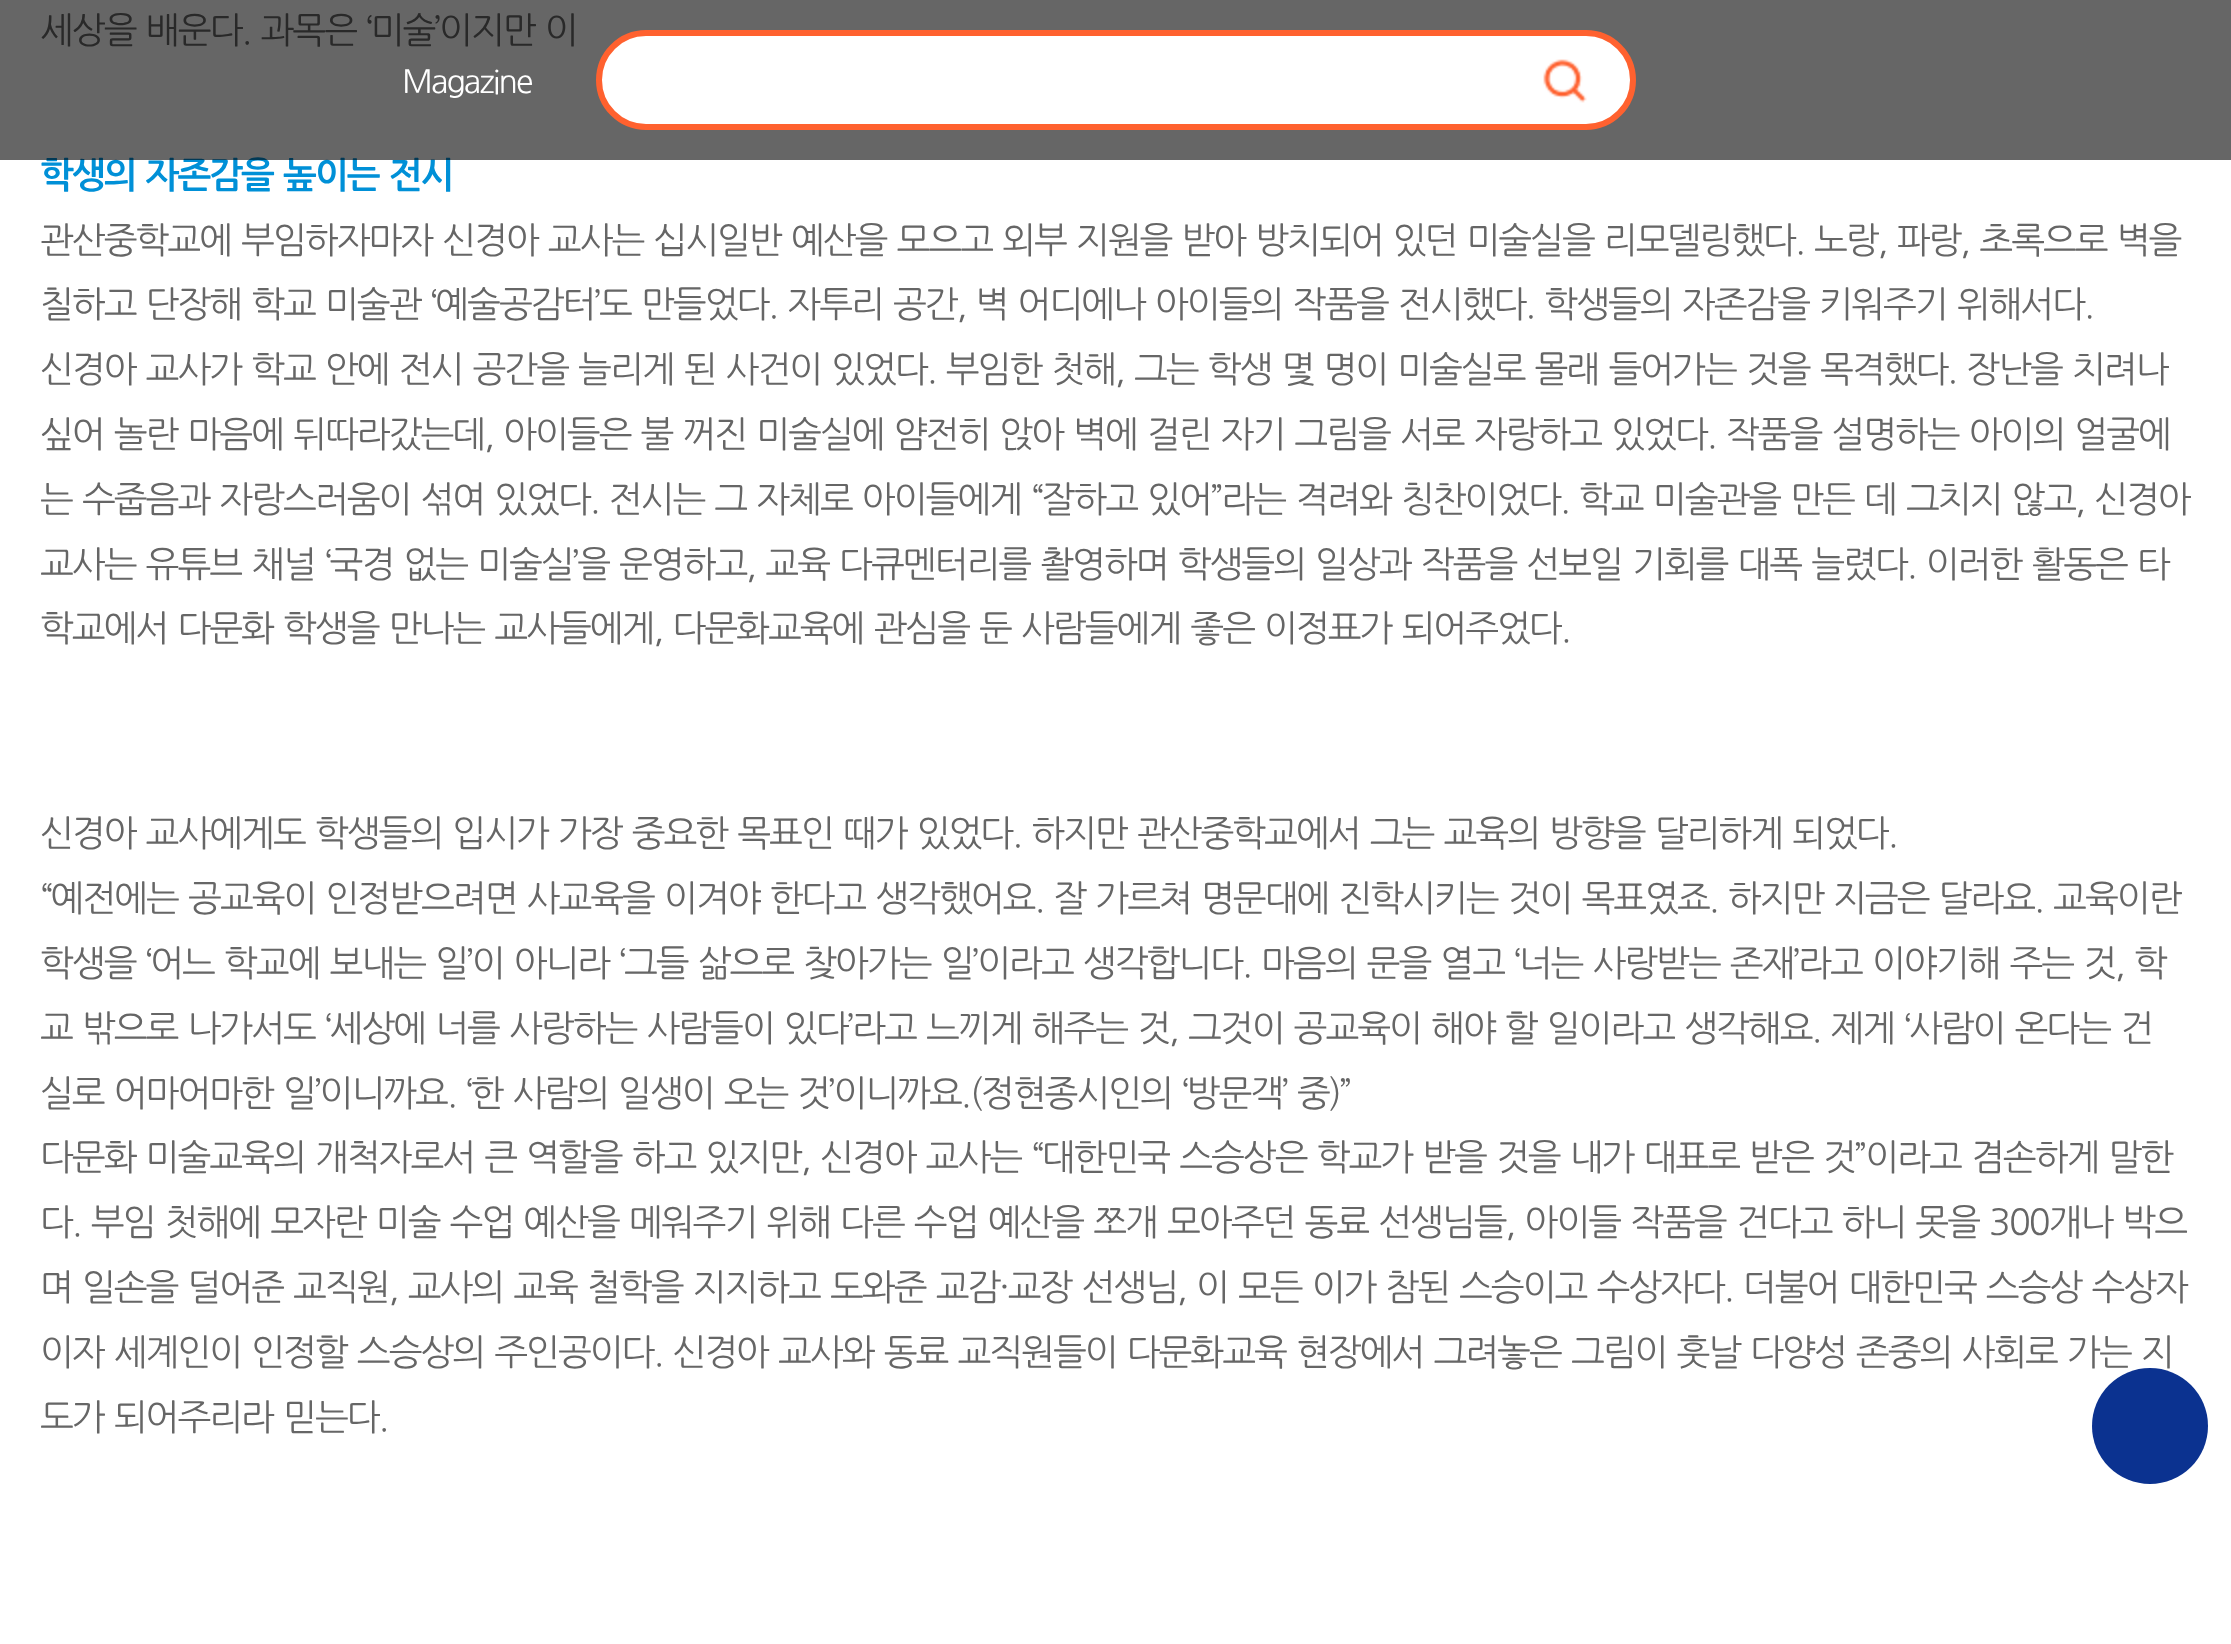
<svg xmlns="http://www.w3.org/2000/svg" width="2231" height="1644">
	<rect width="100%" height="100%" fill="#FFFFFF" />
	<g font-family="NanumGothic" font-size="36" letter-spacing="-2" fill="#666666">
		<text x="40" y="43">세상을</text>
		<text x="146" y="43" word-spacing="2">배운다. 과목은 ‘미술’이지만 이</text>
	</g>
	<text x="40" y="188" word-spacing="2" font-family="NanumGothic" font-size="36" font-weight="700" letter-spacing="-2" fill="#0090D7">학생의 자존감을 높이는 전시</text>
	<g font-family="NanumGothic" font-size="36" letter-spacing="-2" fill="#666666">
		<text x="40" y="253" word-spacing="2">관산중학교에 부임하자마자 신경아 교사는 십시일반 예산을 모으고 외부 지원을 받아 방치되어 있던 미술실을 리모델링했다.</text>
		<text x="1814" y="253" word-spacing="2">노랑, 파랑, 초록으로 벽을</text>
		<text x="40" y="317" word-spacing="2">칠하고 단장해 학교 미술관 ‘예술공감터’도 만들었다. 자투리 공간, 벽 어디에나 아이들의 작품을</text>
		<text x="1398" y="317" word-spacing="2">전시했다. 학생들의 자존감을 키워주기 위해서다.</text>
		<text x="40" y="382" word-spacing="2">신경아 교사가 학교 안에 전시 공간을 늘리게 된 사건이 있었다. 부임한 첫해, 그는 학생 몇 명이 미술실로 몰래 들어가는 것을</text>
		<text x="1820" y="382" word-spacing="2">목격했다. 장난을 치려나</text>
		<text x="40" y="447" word-spacing="2">싶어 놀란 마음에 뒤따라갔는데, 아이들은 불 꺼진 미술실에 얌전히 앉아 벽에 걸린 자기 그림을</text>
		<text x="1400" y="447" word-spacing="2">서로 자랑하고 있었다. 작품을 설명하는 아이의 얼굴에</text>
		<text x="40" y="512" word-spacing="2">는 수줍음과 자랑스러움이 섞여 있었다. 전시는 그 자체로 아이들에게</text>
		<text x="1031" y="512" word-spacing="2">“잘하고 있어”라는 격려와 칭찬이었다. 학교 미술관을 만든 데 그치지 않고, 신경아</text>
		<text x="40" y="577" word-spacing="2">교사는 유튜브 채널 ‘국경 없는 미술실’을</text>
		<text x="619" y="577" word-spacing="2">운영하고, 교육 다큐멘터리를 촬영하며 학생들의 일상과 작품을 선보일 기회를 대폭 늘렸다. 이러한 활동은 타</text>
		<text x="40" y="641" word-spacing="2">학교에서 다문화</text>
		<text x="283" y="641" word-spacing="2">학생을 만나는 교사들에게, 다문화교육에 관심을 둔 사람들에게 좋은 이정표가 되어주었다.</text>
		<text x="40" y="846" word-spacing="2">신경아 교사에게도 학생들의 입시가 가장 중요한 목표인 때가 있었다. 하지만 관산중학교에서 그는 교육의 방향을 달리하게 되었다.</text>
		<text x="40" y="911" word-spacing="2">“예전에는 공교육이 인정받으려면 사교육을 이겨야 한다고 생각했어요. 잘 가르쳐 명문대에 진학시키는 것이 목표였죠. 하지만</text>
		<text x="1833" y="911" word-spacing="2">지금은 달라요. 교육이란</text>
		<text x="40" y="976" word-spacing="2">학생을 ‘어느 학교에 보내는 일’이 아니라 ‘그들 삶으로 찾아가는 일’이라고 생각합니다. 마음의 문을 열고</text>
		<text x="1514" y="976" word-spacing="2">‘너는 사랑받는 존재’라고 이야기해 주는 것, 학</text>
		<text x="40" y="1041" word-spacing="2">교 밖으로 나가서도 ‘세상에 너를 사랑하는 사람들이 있다’라고 느끼게 해주는 것,</text>
		<text x="1188" y="1041" word-spacing="2">그것이 공교육이 해야 할 일이라고 생각해요. 제게 ‘사람이 온다는 건</text>
		<text x="40" y="1106" word-spacing="2">실로 어마어마한 일’이니까요. ‘한 사람의 일생이 오는</text>
		<text x="797" y="1106" word-spacing="2">것’이니까요.(정현종시인의 ‘방문객’ 중)”</text>
		<text x="40" y="1170" word-spacing="2">다문화 미술교육의 개척자로서 큰 역할을 하고 있지만, 신경아 교사는 “대한민국 스승상은 학교가 받을 것을 내가 대표로 받은 것”이라고</text>
		<text x="1971" y="1170" word-spacing="2">겸손하게 말한</text>
		<text x="40" y="1235" word-spacing="2">다. 부임 첫해에 모자란 미술 수업 예산을 메워주기 위해 다른 수업 예산을 쪼개 모아주던 동료 선생님들, 아이들 작품을</text>
		<text x="1736" y="1235" word-spacing="2">건다고 하니 못을 300개나 박으</text>
		<text x="40" y="1300" word-spacing="2">며 일손을 덜어준 교직원, 교사의 교육 철학을 지지하고 도와준 교감·교장 선생님, 이 모든 이가 참된</text>
		<text x="1459" y="1300" word-spacing="2">스승이고 수상자다. 더불어 대한민국 스승상 수상자</text>
		<text x="40" y="1365" word-spacing="2">이자 세계인이 인정할 스승상의 주인공이다. 신경아 교사와 동료 교직원들이 다문화교육</text>
		<text x="1296" y="1365" word-spacing="2">현장에서 그려놓은 그림이 훗날 다양성 존중의 사회로 가는 지</text>
		<text x="40" y="1430" word-spacing="2">도가 되어주리라 믿는다.</text>
	</g>
	<rect x="0" y="0" width="2231" height="160" fill="#000000" fill-opacity="0.6" />
	<text x="402" y="93" font-family="NanumGothic" font-size="32" letter-spacing="-2" fill="#FFFFFF">Magazine</text>
	<rect x="599" y="33" width="1034" height="94" rx="47" fill="#FFFFFF" stroke="#FF612F" stroke-width="6" />
	<image x="1543" y="59" width="44" height="44" href="assets/img1.png" />
	<circle cx="2150" cy="1426" r="58" fill="#0B3290" />
</svg>
